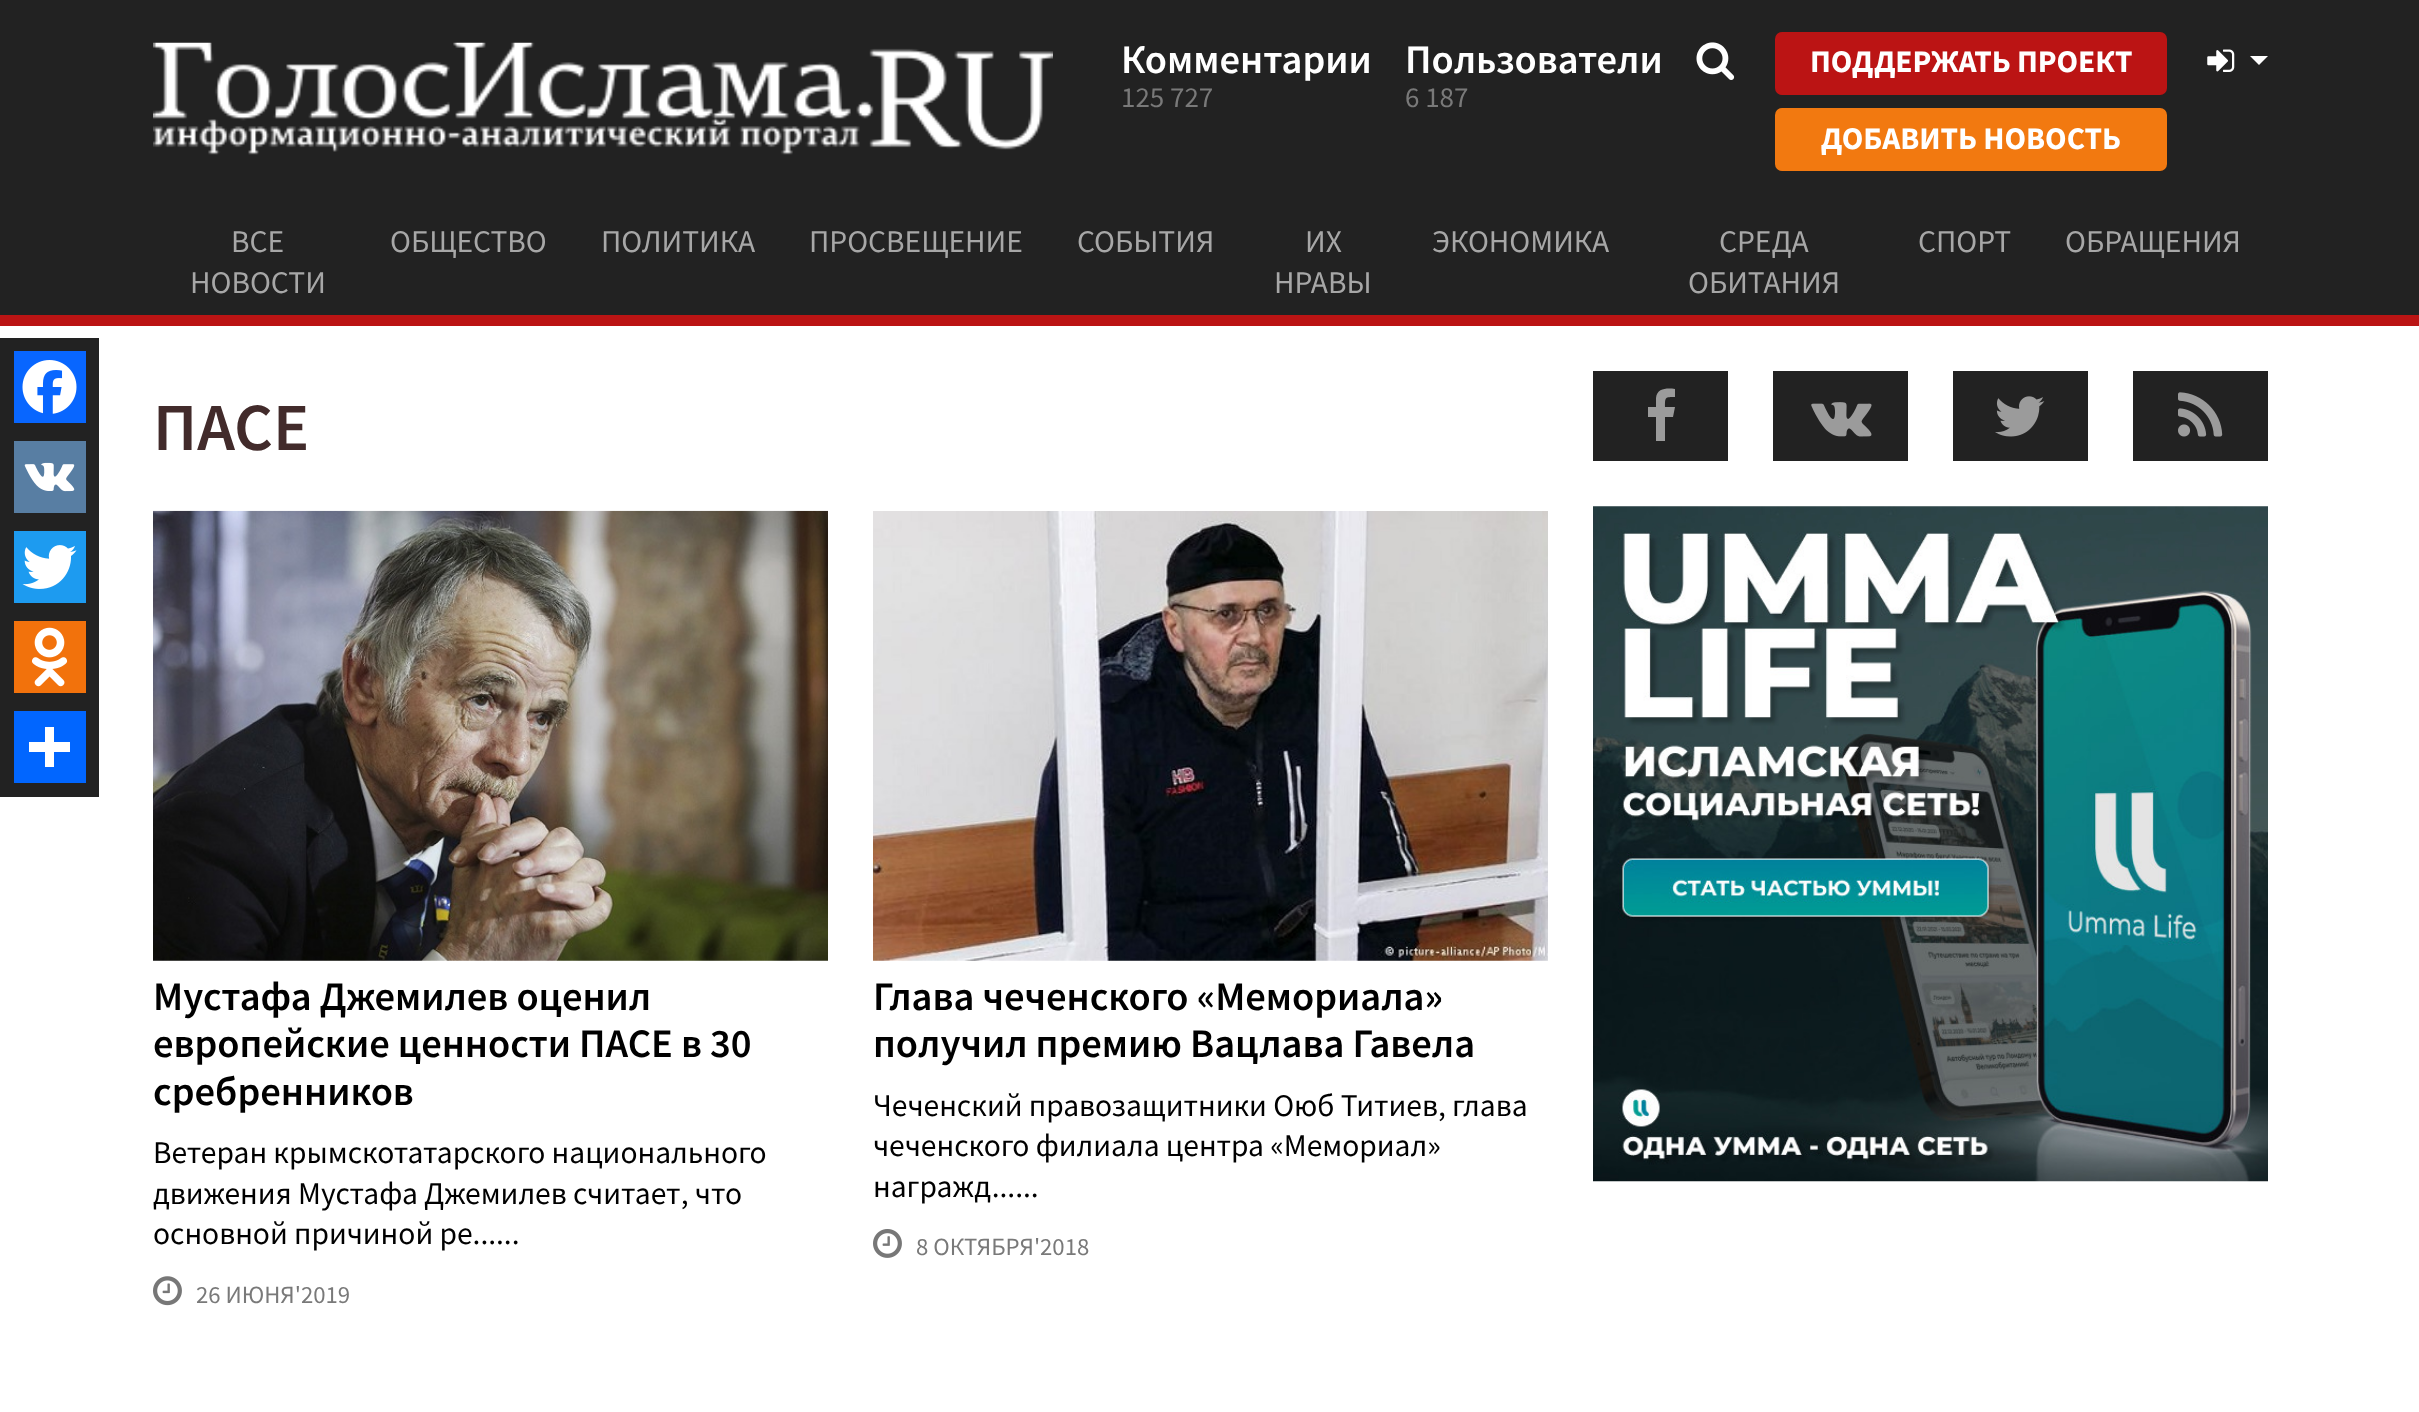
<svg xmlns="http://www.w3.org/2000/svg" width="2419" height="1412">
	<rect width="100%" height="100%" fill="#FFFFFF" />
	<rect x="0" y="0" width="2419" height="315" fill="#222222" />
	<rect x="0" y="315" width="2419" height="11" fill="#BB1414" />
	<image x="153" y="42" width="900" height="113" href="assets/img1.png" />
	<text x="1121" y="73" font-family="Source Sans Pro" font-size="40.5" font-weight="600" fill="#FFFFFF">Комментарии</text>
	<text x="1121" y="107" font-family="Source Sans Pro" font-size="29" fill="#797979">125 727</text>
	<text x="1405" y="73" font-family="Source Sans Pro" font-size="40.5" font-weight="600" fill="#FFFFFF">Пользователи</text>
	<text x="1405" y="107" font-family="Source Sans Pro" font-size="29" fill="#797979">6 187</text>
	<image x="1696" y="42" width="39" height="38" href="assets/img2.png" />
	<rect x="1775" y="32" width="392" height="63" rx="7" fill="#BB1414" />
	<text x="1810" y="72" font-family="Source Sans Pro" font-size="31.5" font-weight="700" fill="#FFFFFF">ПОДДЕРЖАТЬ ПРОЕКТ</text>
	<rect x="1775" y="108" width="392" height="63" rx="7" fill="#F27910" />
	<text x="1821" y="149" font-family="Source Sans Pro" font-size="31.5" font-weight="700" fill="#FFFFFF">ДОБАВИТЬ НОВОСТЬ</text>
	<image x="2207" y="49" width="28" height="23" href="assets/img3.png" />
	<path d="M2250 56H2268L2259 65Z" fill="#FFFFFF" />
	<g font-family="Source Sans Pro" font-size="31.5" fill="#A7A7A7">
		<text x="231" y="252">ВСЕ</text>
		<text x="190" y="293">НОВОСТИ</text>
		<text x="390" y="252">ОБЩЕСТВО</text>
		<text x="601" y="252">ПОЛИТИКА</text>
		<text x="809" y="252">ПРОСВЕЩЕНИЕ</text>
		<text x="1077" y="252">СОБЫТИЯ</text>
		<text x="1305" y="252">ИХ</text>
		<text x="1274" y="293">НРАВЫ</text>
		<text x="1432" y="252">ЭКОНОМИКА</text>
		<text x="1719" y="252">СРЕДА</text>
		<text x="1688" y="293">ОБИТАНИЯ</text>
		<text x="1918" y="252">СПОРТ</text>
		<text x="2065" y="252">ОБРАЩЕНИЯ</text>
	</g>
	<rect x="0" y="338" width="99" height="459" fill="#222222" />
	<rect x="14" y="351" width="72" height="72" fill="#0866FF" />
	<image x="22" y="360" width="55" height="54" href="assets/img4.png" />
	<rect x="14" y="441" width="72" height="72" fill="#587EA3" />
	<image x="24" y="462" width="51" height="30" href="assets/img5.png" />
	<rect x="14" y="531" width="72" height="72" fill="#1D9BF0" />
	<image x="22" y="545" width="55" height="44" href="assets/img6.png" />
	<rect x="14" y="621" width="72" height="72" fill="#F2720C" />
	<image x="31" y="627" width="37" height="60" href="assets/img7.png" />
	<rect x="14" y="711" width="72" height="72" fill="#0166FF" />
	<rect x="45" y="727" width="9" height="40" fill="#FFFFFF" />
	<rect x="29" y="742" width="41" height="10" fill="#FFFFFF" />
	<text x="153" y="450" font-family="Source Sans Pro" font-size="67.5" font-weight="600" fill="#422B2B">ПАСЕ</text>
	<image x="153" y="510" width="675" height="451" href="assets/img8.png" />
	<g font-family="Source Sans Pro" font-size="40.5" font-weight="600" fill="#000000">
		<text x="153" y="1010">Мустафа Джемилев оценил</text>
		<text x="153" y="1057">европейские ценности ПАСЕ в 30</text>
		<text x="153" y="1105">сребренников</text>
	</g>
	<g font-family="Source Sans Pro" font-size="31.5" fill="#000000">
		<text x="153" y="1163">Ветеран крымскотатарского национального</text>
		<text x="153" y="1204">движения Мустафа Джемилев считает, что</text>
		<text x="153" y="1244">основной причиной ре......</text>
	</g>
	<image x="153" y="1276" width="29" height="30" href="assets/img9.png" />
	<text x="196" y="1303" font-family="Source Sans Pro" font-size="24.75" fill="#797979">26 ИЮНЯ'2019</text>
	<image x="873" y="511" width="675" height="450" href="assets/img10.png" />
	<g font-family="Source Sans Pro" font-size="40.5" font-weight="600" fill="#000000">
		<text x="873" y="1010">Глава чеченского «Мемориала»</text>
		<text x="873" y="1057">получил премию Вацлава Гавела</text>
	</g>
	<g font-family="Source Sans Pro" font-size="31.5" fill="#000000">
		<text x="873" y="1116">Чеченский правозащитники Оюб Титиев, глава</text>
		<text x="873" y="1156">чеченского филиала центра «Мемориал»</text>
		<text x="873" y="1197">награжд......</text>
	</g>
	<image x="873" y="1229" width="29" height="29" href="assets/img11.png" />
	<text x="916" y="1255" font-family="Source Sans Pro" font-size="24.75" fill="#797979">8 ОКТЯБРЯ'2018</text>
	<rect x="1593" y="371" width="135" height="90" fill="#222222" />
	<path d="M1675 389V397C1665 397 1665 397 1665 407H1675L1673 417H1665V441H1656V417H1648V407H1656V398C1657 388 1667 388 1675 389Z" fill="#9B9B9B" />
	<rect x="1773" y="371" width="135" height="90" fill="#222222" />
	<image x="1811" y="402" width="61" height="35" href="assets/img12.png" />
	<rect x="1953" y="371" width="135" height="90" fill="#222222" />
	<image x="1995" y="396" width="50" height="41" href="assets/img13.png" />
	<rect x="2133" y="371" width="135" height="90" fill="#222222" />
	<image x="2178" y="392" width="45" height="45" href="assets/img14.png" />
	<image x="1593" y="506" width="675" height="676" href="assets/img15.png" />
</svg>
